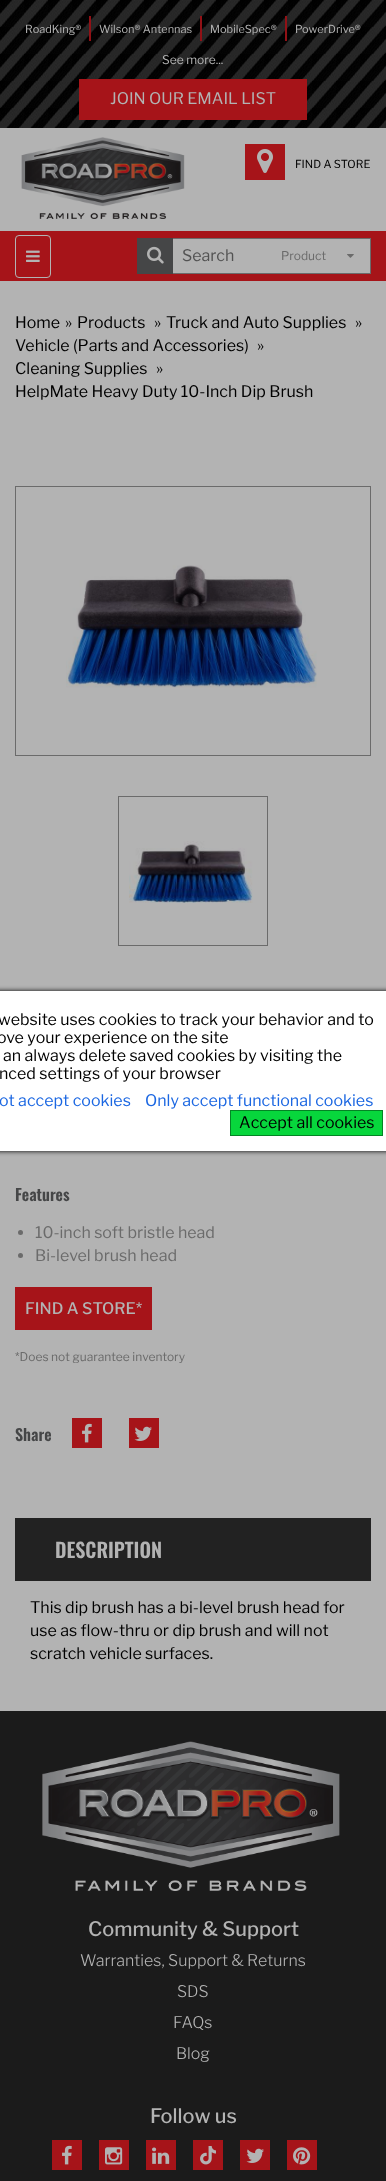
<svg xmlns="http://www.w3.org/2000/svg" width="386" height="2181">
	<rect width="100%" height="100%" fill="#B3B3B3" />
	<image x="0" y="0" width="386" height="128" href="assets/img1.png" />
	<rect x="89" y="16" width="2" height="25" fill="#911116" />
	<text x="25" y="33" font-family="Libre Franklin" font-size="11" fill="#B3B3B3">RoadKing®</text>
	<rect x="200" y="16" width="2" height="25" fill="#911116" />
	<text x="99" y="33" font-family="Libre Franklin" font-size="11" fill="#B3B3B3">Wilson® Antennas</text>
	<rect x="285" y="16" width="2" height="25" fill="#911116" />
	<g font-family="Libre Franklin" font-size="11" fill="#B3B3B3">
		<text x="210" y="33">MobileSpec®</text>
		<text x="295" y="33">PowerDrive®</text>
	</g>
	<text x="162" y="64" font-family="Libre Franklin" font-size="12" fill="#B3B3B3">See more...</text>
	<rect x="79" y="79" width="228" height="41" fill="#A61419" />
	<text x="110" y="104" font-family="Libre Franklin" font-size="16" fill="#B3B3B3">JOIN OUR EMAIL LIST</text>
	<image x="21" y="137" width="164" height="82" href="assets/img2.png" />
	<rect x="245" y="144" width="40" height="36" fill="#A61419" />
	<image x="257" y="149" width="16" height="24" href="assets/img3.png" />
	<text x="295" y="168" font-family="Libre Franklin" font-size="11" fill="#000000">FIND A STORE</text>
	<rect x="0" y="231" width="386" height="50" fill="#A61419" />
	<rect x="173" y="239" width="197" height="34" fill="#B3B3B3" />
	<rect x="171.5" y="238.5" width="199" height="35" fill="none" stroke="#6B6B6B" />
	<rect x="137" y="238" width="36" height="36" fill="#454647" />
	<image x="147" y="246" width="17" height="18" href="assets/img4.png" />
	<text x="182" y="261" font-family="Libre Franklin" font-size="16" fill="#525252">Search</text>
	<text x="281" y="260" font-family="Libre Franklin" font-size="12" fill="#6B6B6B">Product</text>
	<image x="347" y="254" width="7" height="4" href="assets/img5.png" />
	<rect x="15.5" y="235.5" width="35" height="42" rx="3.5" fill="none" stroke="#B3B3B3" />
	<image x="26" y="250" width="14" height="12" href="assets/img6.png" />
	<g font-family="Libre Franklin" font-size="16" fill="#000000">
		<text x="15" y="328">Home</text>
		<text x="65" y="328">»</text>
		<text x="77" y="328">Products</text>
		<text x="154" y="328">»</text>
		<text x="166" y="328">Truck and Auto Supplies</text>
		<text x="355" y="328">»</text>
		<text x="15" y="351">Vehicle (Parts and Accessories)</text>
		<text x="257" y="351">»</text>
		<text x="15" y="374">Cleaning Supplies</text>
		<text x="156" y="374">»</text>
		<text x="15" y="397">HelpMate Heavy Duty 10-Inch Dip Brush</text>
	</g>
	<rect x="15.5" y="486.5" width="355" height="269" fill="none" stroke="#6B6B6B" />
	<image x="66" y="565" width="251" height="123" href="assets/img7.png" />
	<rect x="118.5" y="796.5" width="149" height="149" fill="none" stroke="#6B6B6B" />
	<image x="129" y="841" width="124" height="62" href="assets/img8.png" />
	<text x="15" y="1201" font-family="Oswald" font-size="16" font-weight="600" fill="#454647">Features</text>
	<circle cx="20.5" cy="1232.5" r="2.5" fill="#6B6B6B" />
	<text x="35" y="1238" font-family="Libre Franklin" font-size="16" fill="#6B6B6B">10-inch soft bristle head</text>
	<circle cx="20.5" cy="1255.5" r="2.5" fill="#6B6B6B" />
	<text x="35" y="1261" font-family="Libre Franklin" font-size="16" fill="#6B6B6B">Bi-level brush head</text>
	<rect x="15" y="1287" width="137" height="43" fill="#A61419" />
	<text x="25" y="1314" font-family="Libre Franklin" font-size="16" font-weight="500" fill="#B3B3B3">FIND A STORE*</text>
	<text x="15" y="1361" font-family="Libre Franklin" font-size="12" fill="#6B6B6B">*Does not guarantee inventory</text>
	<text x="15" y="1441" font-family="Oswald" font-size="16" font-weight="600" fill="#454647">Share</text>
	<rect x="72" y="1418" width="30" height="30" fill="#A61419" />
	<image x="82" y="1423" width="10" height="20" href="assets/img9.png" />
	<rect x="129" y="1418" width="30" height="30" fill="#A61419" />
	<image x="134" y="1426" width="18" height="15" href="assets/img10.png" />
	<rect x="15" y="1518" width="356" height="63" fill="#222222" />
	<text x="55" y="1558" font-family="Oswald" font-size="20" font-weight="600" fill="#B3B3B3">DESCRIPTION</text>
	<g font-family="Libre Franklin" font-size="16" fill="#000000">
		<text x="30" y="1613">This dip brush has a bi-level brush head for</text>
		<text x="30" y="1636">use as flow-thru or dip brush and will not</text>
		<text x="30" y="1659">scratch vehicle surfaces.</text>
	</g>
	<rect x="0" y="1711" width="386" height="470" fill="#1B1B1B" />
	<image x="42" y="1741" width="298" height="150" href="assets/img11.png" />
	<text x="88" y="1936" font-family="Libre Franklin" font-size="20" font-weight="500" fill="#B3B3B3">Community &amp; Support</text>
	<g font-family="Libre Franklin" font-size="16" font-weight="300" fill="#B3B3B3">
		<text x="80" y="1966">Warranties, Support &amp; Returns</text>
		<text x="177" y="1997">SDS</text>
		<text x="173" y="2028">FAQs</text>
		<text x="176" y="2059">Blog</text>
	</g>
	<text x="150" y="2123" font-family="Libre Franklin" font-size="20" font-weight="500" fill="#B3B3B3">Follow us</text>
	<rect x="52" y="2140" width="30" height="30" fill="#A61419" />
	<image x="62" y="2145" width="10" height="20" href="assets/img9.png" />
	<rect x="99" y="2140" width="30" height="30" fill="#A61419" />
	<image x="105" y="2147" width="18" height="18" href="assets/img12.png" />
	<rect x="146" y="2140" width="30" height="30" fill="#A61419" />
	<image x="152" y="2147" width="18" height="17" href="assets/img13.png" />
	<rect x="193" y="2140" width="30" height="30" fill="#A61419" />
	<image x="200" y="2146" width="16" height="19" href="assets/img14.png" />
	<rect x="240" y="2140" width="30" height="30" fill="#A61419" />
	<image x="246" y="2148" width="18" height="15" href="assets/img10.png" />
	<rect x="287" y="2140" width="30" height="30" fill="#A61419" />
	<image x="293" y="2147" width="18" height="18" href="assets/img15.png" />
	<rect x="-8" y="991" width="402" height="160" fill="#000000" filter="blur(2.5px)" />
	<rect x="0" y="991" width="386" height="160" fill="#FFFFFF" />
	<g font-family="Libre Franklin" font-size="16" fill="#000000">
		<text x="-2" y="1025">website uses cookies to track your behavior and to</text>
		<text x="-3" y="1043">ove your experience on the site</text>
		<text x="3" y="1061">an always delete saved cookies by visiting the</text>
		<text x="-1" y="1079">nced settings of your browser</text>
	</g>
	<g font-family="Libre Franklin" font-size="16" fill="#1B67E2">
		<text x="-1" y="1106">ot accept cookies</text>
		<text x="145" y="1106">Only accept functional cookies</text>
	</g>
	<rect x="230.5" y="1110.5" width="152" height="25" fill="#07D63C" stroke="#048425" />
	<text x="239" y="1128" font-family="Libre Franklin" font-size="16" fill="#000000">Accept all cookies</text>
</svg>
